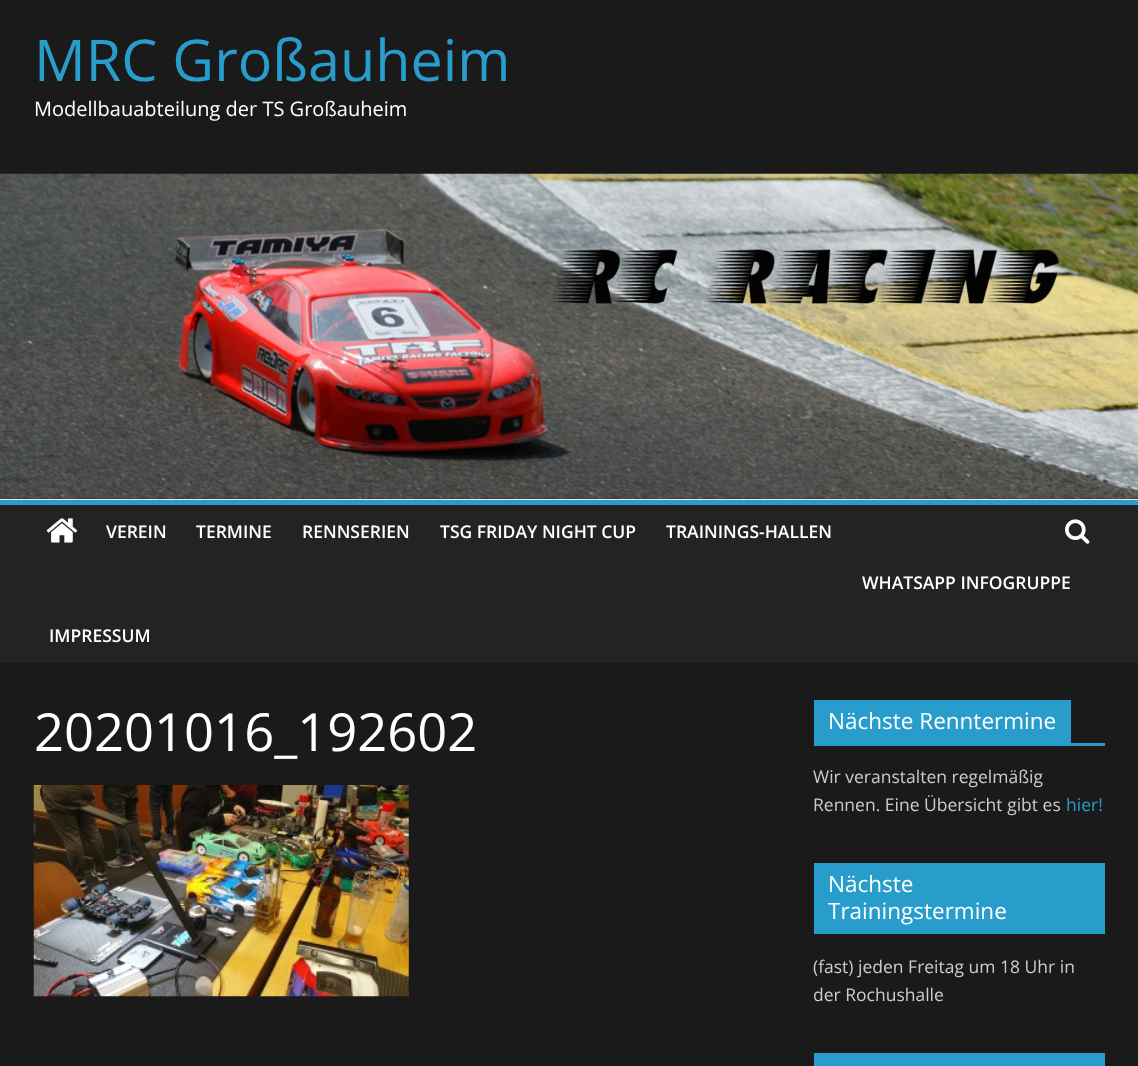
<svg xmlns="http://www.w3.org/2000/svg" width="1138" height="1066">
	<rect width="100%" height="100%" fill="#1A1A1A" />
	<text x="34" y="81" font-family="Open Sans" font-size="57.5" fill="#289DCC">MRC Großauheim</text>
	<text x="34" y="116" font-family="Open Sans" font-size="20" fill="#FFFFFF">Modellbauabteilung der TS Großauheim</text>
	<image x="0" y="173" width="1138" height="326" href="assets/img1.png" />
	<rect x="0" y="499" width="1138" height="1" fill="#EAEAEA" />
	<rect x="0" y="505" width="1138" height="158" fill="#232323" />
	<rect x="0" y="500" width="1138" height="5" fill="#289DCC" />
	<image x="46" y="518" width="32" height="25" href="assets/img2.png" />
	<image x="1065" y="519" width="25" height="25" href="assets/img3.png" />
	<g font-family="Open Sans" font-size="17.5" font-weight="600" fill="#FFFFFF">
		<text x="106" y="538">VEREIN</text>
		<text x="196" y="538">TERMINE</text>
		<text x="302" y="538">RENNSERIEN</text>
		<text x="440" y="538">TSG FRIDAY NIGHT CUP</text>
		<text x="666" y="538">TRAININGS-HALLEN</text>
		<text x="862" y="589">WHATSAPP INFOGRUPPE</text>
		<text x="49" y="642">IMPRESSUM</text>
	</g>
	<text x="34" y="751" font-family="Open Sans" font-size="52.5" fill="#FFFFFF">20201016_192602</text>
	<image x="33" y="785" width="376" height="212" href="assets/img4.png" />
	<rect x="814" y="743" width="291" height="3" fill="#289DCC" />
	<rect x="814" y="700" width="257" height="43" fill="#289DCC" />
	<text x="828" y="729" font-family="Open Sans" font-size="22.5" fill="#FFFFFF">Nächste Renntermine</text>
	<g font-family="Open Sans" font-size="17.5" fill="#CCCCCC">
		<text x="813" y="783">Wir veranstalten regelmäßig</text>
		<text x="813" y="811">Rennen. Eine Übersicht gibt es</text>
	</g>
	<text x="1066" y="811" font-family="Open Sans" font-size="17.5" fill="#289DCC">hier!</text>
	<rect x="814" y="863" width="291" height="71" fill="#289DCC" />
	<g font-family="Open Sans" font-size="22.5" fill="#FFFFFF">
		<text x="828" y="892">Nächste</text>
		<text x="828" y="919">Trainingstermine</text>
	</g>
	<g font-family="Open Sans" font-size="17.5" fill="#CCCCCC">
		<text x="813" y="973">(fast) jeden Freitag um 18 Uhr in</text>
		<text x="813" y="1001">der Rochushalle</text>
	</g>
	<rect x="814" y="1053" width="291" height="13" fill="#289DCC" />
</svg>
